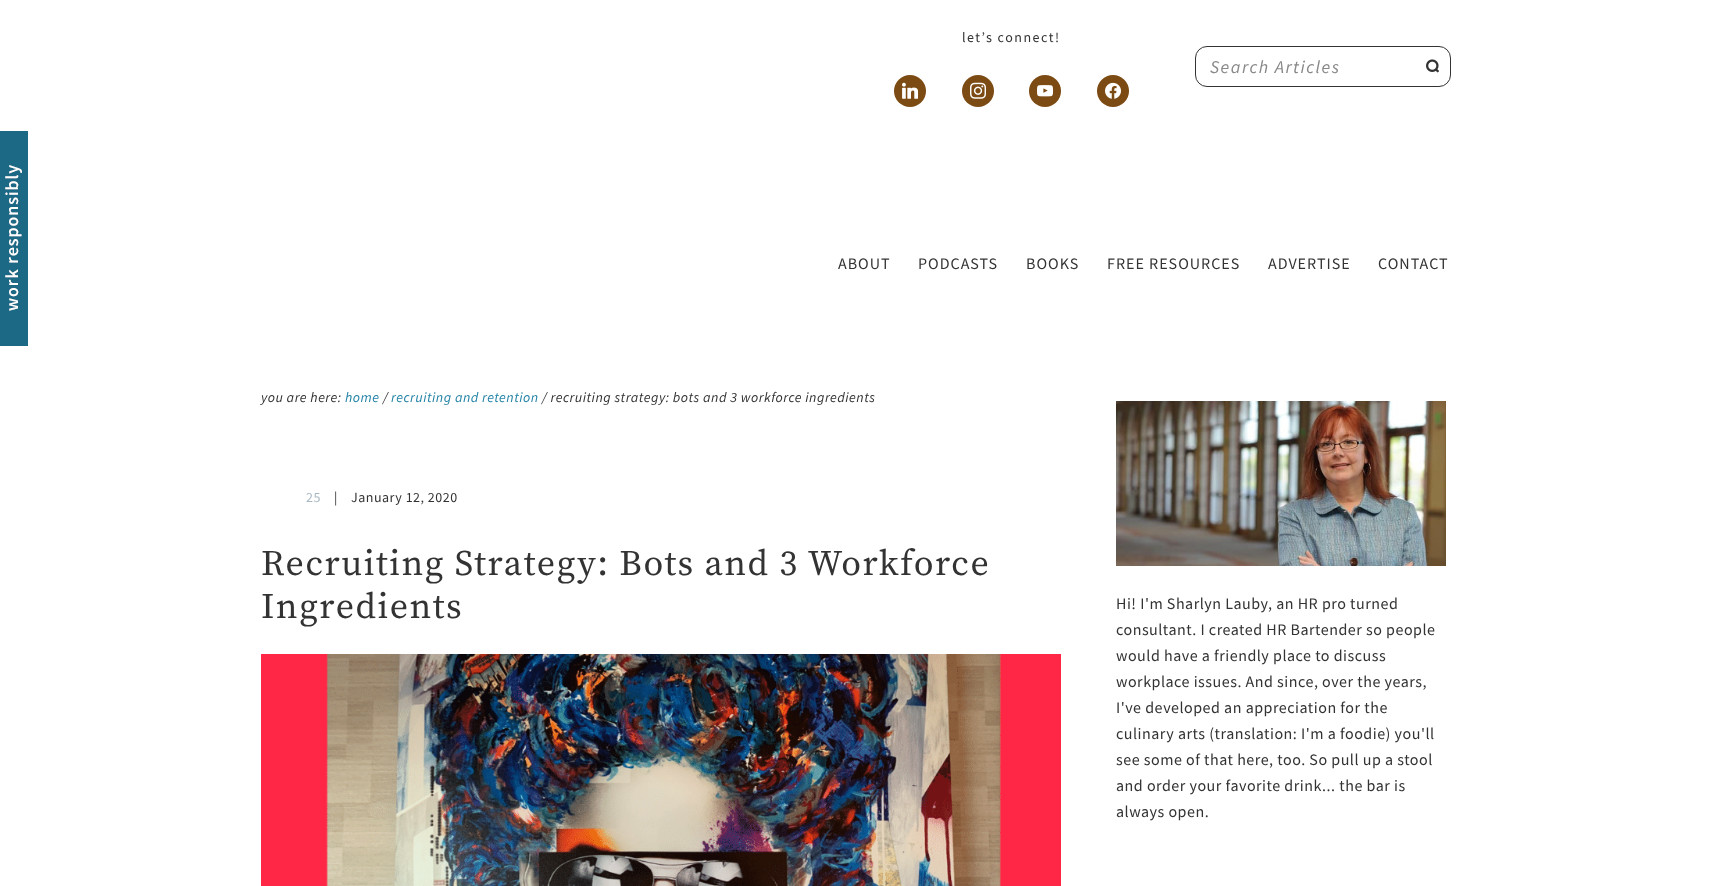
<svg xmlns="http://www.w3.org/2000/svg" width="1722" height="886">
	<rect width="100%" height="100%" fill="#FFFFFF" />
	<text x="962" y="42" font-family="Source Sans Pro" font-size="14" letter-spacing="1.5" fill="#333333">let’s connect!</text>
	<circle cx="910" cy="91" r="16" fill="#7C4B13" />
	<image x="902" y="82" width="17" height="17" href="assets/img1.png" />
	<circle cx="978" cy="91" r="16" fill="#7C4B13" />
	<image x="970" y="82" width="16" height="17" href="assets/img2.png" />
	<circle cx="1045" cy="91" r="16" fill="#7C4B13" />
	<image x="1037" y="85" width="17" height="12" href="assets/img3.png" />
	<circle cx="1113" cy="91" r="16" fill="#7C4B13" />
	<image x="1105" y="82" width="16" height="17" href="assets/img4.png" />
	<rect x="1195.5" y="46.5" width="255" height="40" rx="11.5" fill="none" stroke="#333333" />
	<text x="1210" y="73" font-family="Source Sans Pro" font-size="18" font-style="italic" letter-spacing="1.5" fill="#888888">Search Articles</text>
	<image x="1426" y="59" width="13" height="14" href="assets/img5.png" />
	<image x="0" y="131" width="28" height="215" href="assets/img6.png" />
	<g font-family="Source Sans Pro" font-size="16" letter-spacing="1" fill="#333333">
		<text x="838" y="269">ABOUT</text>
		<text x="918" y="269">PODCASTS</text>
		<text x="1026" y="269">BOOKS</text>
		<text x="1107" y="269">FREE RESOURCES</text>
		<text x="1268" y="269">ADVERTISE</text>
		<text x="1378" y="269">CONTACT</text>
	</g>
	<text x="261" y="402" font-family="Source Sans Pro" font-size="14" font-style="italic" letter-spacing="0.5" fill="#333333">you are here:</text>
	<text x="345" y="402" font-family="Source Sans Pro" font-size="14" font-style="italic" letter-spacing="0.5" fill="#2383A6">home</text>
	<text x="383" y="402" font-family="Source Sans Pro" font-size="14" font-style="italic" letter-spacing="0.5" fill="#333333">/</text>
	<text x="391" y="402" font-family="Source Sans Pro" font-size="14" font-style="italic" letter-spacing="0.5" fill="#2383A6">recruiting and retention</text>
	<text x="542" y="402" font-family="Source Sans Pro" font-size="14" font-style="italic" letter-spacing="0.5" fill="#333333">/ recruiting strategy: bots and 3 workforce ingredients</text>
	<text x="306" y="502" font-family="Source Sans Pro" font-size="14" letter-spacing="0.5" fill="#AAB8C2">25</text>
	<g font-family="Source Sans Pro" font-size="14" letter-spacing="0.5" fill="#333333">
		<text x="334" y="502">|</text>
		<text x="351" y="502">January 12, 2020</text>
	</g>
	<g font-family="Source Serif Pro" font-size="36" letter-spacing="1.5" fill="#333333">
		<text x="261" y="575">Recruiting Strategy: Bots and 3 Workforce</text>
		<text x="261" y="618">Ingredients</text>
	</g>
	<image x="261" y="654" width="800" height="232" href="assets/img7.png" />
	<image x="1116" y="401" width="330" height="165" href="assets/img8.png" />
	<g font-family="Source Sans Pro" font-size="16" letter-spacing="0.5" fill="#333333">
		<text x="1116" y="609">Hi! I'm Sharlyn Lauby, an HR pro turned</text>
		<text x="1116" y="635">consultant. I created HR Bartender so people</text>
		<text x="1116" y="661">would have a friendly place to discuss</text>
		<text x="1116" y="687">workplace issues. And since, over the years,</text>
		<text x="1116" y="713">I've developed an appreciation for the</text>
		<text x="1116" y="739">culinary arts (translation: I'm a foodie) you'll</text>
		<text x="1116" y="765">see some of that here, too. So pull up a stool</text>
		<text x="1116" y="791">and order your favorite drink... the bar is</text>
		<text x="1116" y="817">always open.</text>
	</g>
</svg>
